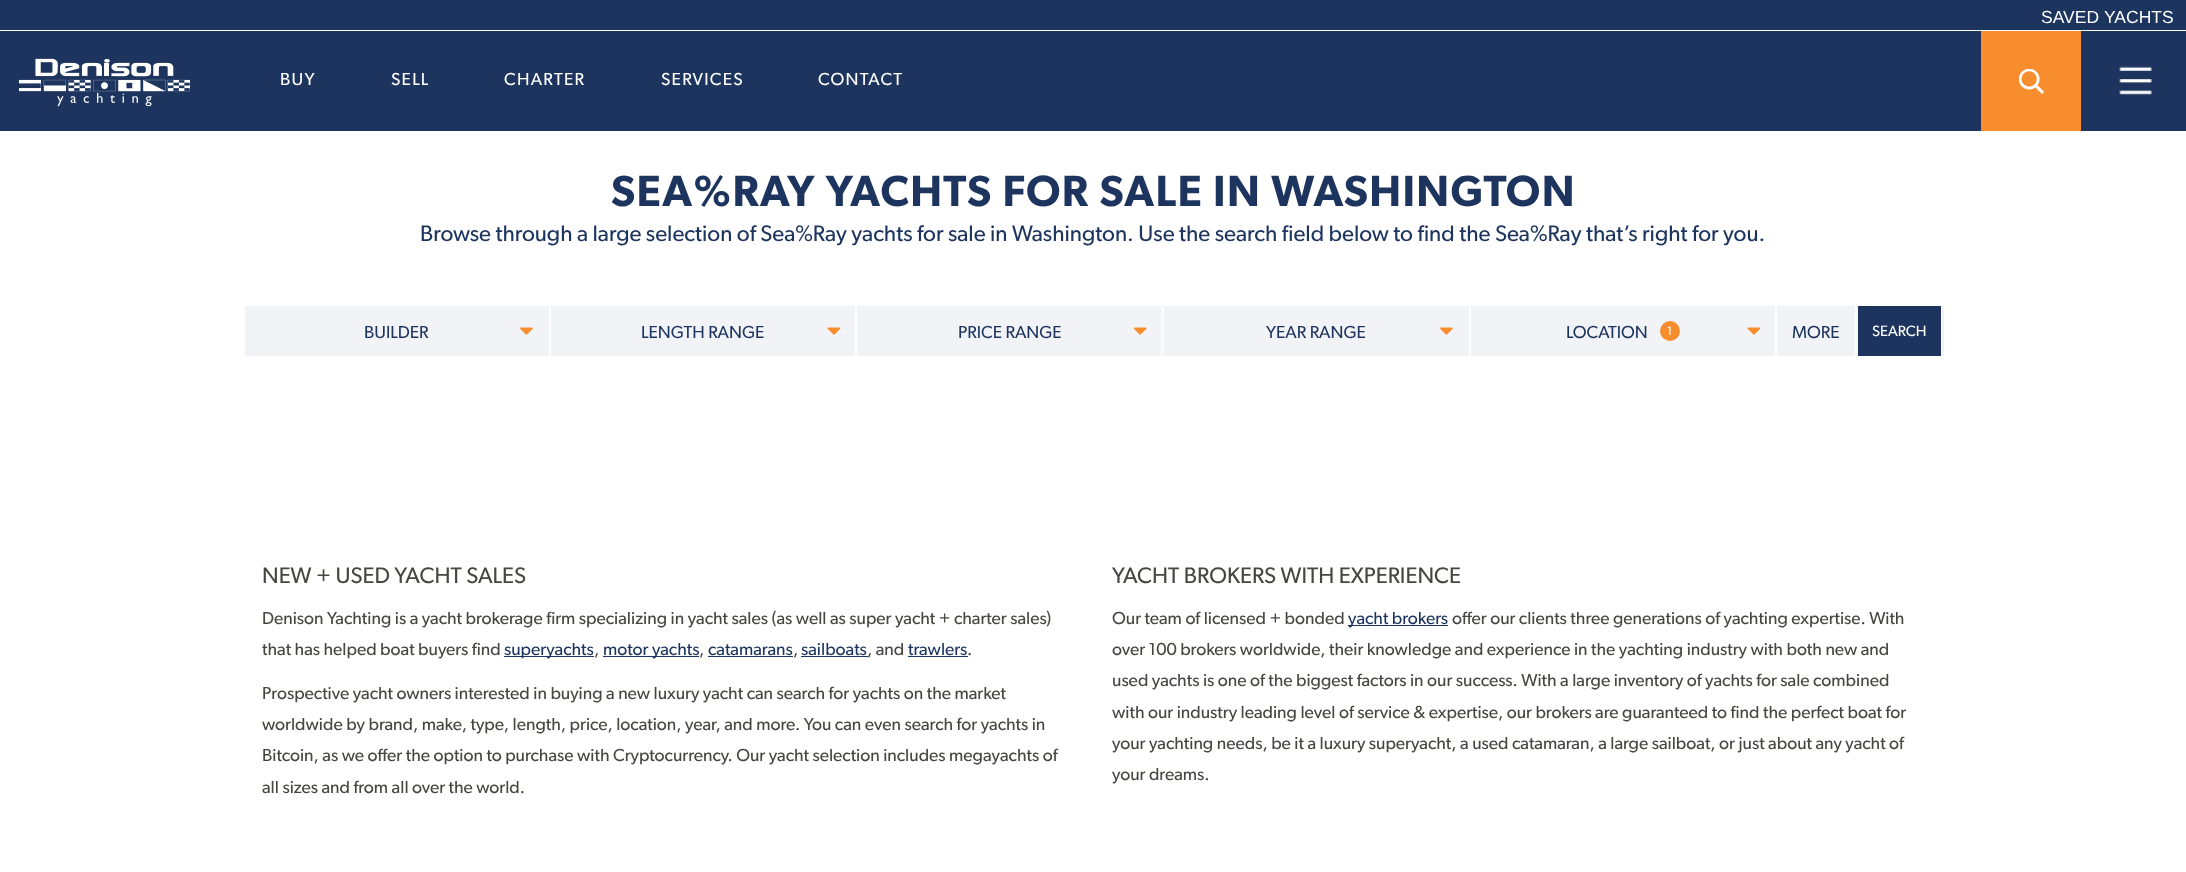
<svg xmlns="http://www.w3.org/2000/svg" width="2186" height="872">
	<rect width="100%" height="100%" fill="#FFFFFF" />
	<rect x="0" y="0" width="2186" height="30" fill="#1D355E" />
	<g font-family="Liberation Sans" font-size="17.5" fill="#FFFFFF">
		<text x="2041" y="23">SAVED</text>
		<text x="2104" y="23">YACHTS</text>
	</g>
	<rect x="0" y="31" width="2186" height="100" fill="#1D355E" />
	<image x="19" y="58" width="171" height="49" href="assets/img1.png" />
	<g font-family="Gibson" font-size="17.5" letter-spacing="1.25" fill="#FFFFFF">
		<text x="280" y="85">BUY</text>
		<text x="391" y="85">SELL</text>
		<text x="504" y="85">CHARTER</text>
		<text x="661" y="85">SERVICES</text>
		<text x="818" y="85">CONTACT</text>
	</g>
	<rect x="1981" y="31" width="100" height="100" fill="#F78D2D" />
	<image x="2019" y="69" width="25" height="25" href="assets/img2.png" />
	<image x="2119" y="66" width="33" height="29" href="assets/img3.png" />
	<text x="611" y="206" font-family="Gibson" font-size="43.75" font-weight="600" letter-spacing="1.35" fill="#1D355E">SEA%RAY YACHTS FOR SALE IN WASHINGTON</text>
	<text x="420" y="241" font-family="Gibson" font-size="22.5" fill="#1D355E">Browse through a large selection of Sea%Ray yachts for sale in Washington. Use the search field below to find the Sea%Ray that’s right for you.</text>
	<rect x="245" y="306" width="1699" height="50" fill="#F2F3F7" />
	<rect x="549" y="306" width="2" height="50" fill="#FFFFFF" />
	<text x="364" y="338" font-family="Gibson" font-size="17.5" fill="#1D355E">BUILDER</text>
	<image x="520" y="327" width="13" height="8" href="assets/img4.png" />
	<rect x="855" y="306" width="2" height="50" fill="#FFFFFF" />
	<text x="641" y="338" font-family="Gibson" font-size="17.5" fill="#1D355E">LENGTH RANGE</text>
	<image x="827" y="327" width="14" height="8" href="assets/img5.png" />
	<rect x="1161" y="306" width="1" height="50" fill="#FFFFFF" />
	<text x="958" y="338" font-family="Gibson" font-size="17.5" fill="#1D355E">PRICE RANGE</text>
	<image x="1133" y="327" width="14" height="8" href="assets/img6.png" />
	<rect x="1469" y="306" width="2" height="50" fill="#FFFFFF" />
	<rect x="1163" y="306" width="1" height="50" fill="#FFFFFF" />
	<text x="1266" y="338" font-family="Gibson" font-size="17.5" fill="#1D355E">YEAR RANGE</text>
	<image x="1440" y="327" width="13" height="8" href="assets/img4.png" />
	<rect x="1775" y="306" width="2" height="50" fill="#FFFFFF" />
	<text x="1566" y="338" font-family="Gibson" font-size="17.5" fill="#1D355E">LOCATION</text>
	<circle cx="1670" cy="331" r="10" fill="#F78D2D" />
	<text x="1667" y="335" font-family="Gibson" font-size="12" fill="#FFFFFF">1</text>
	<image x="1747" y="327" width="14" height="8" href="assets/img5.png" />
	<rect x="1855" y="306" width="2" height="50" fill="#FFFFFF" />
	<text x="1792" y="338" font-family="Gibson" font-size="17.5" fill="#1D355E">MORE</text>
	<rect x="1941" y="306" width="1" height="50" fill="#FFFFFF" />
	<rect x="1858" y="306" width="83" height="50" fill="#1D355E" />
	<text x="1872" y="336" font-family="Gibson" font-size="15" fill="#FFFFFF">SEARCH</text>
	<text x="262" y="583" font-family="Gibson" font-size="22.5" fill="#484643">NEW + USED YACHT SALES</text>
	<g font-family="Gibson" font-size="17.5" fill="#484643">
		<text x="262" y="624">Denison Yachting is a yacht brokerage firm specializing in yacht sales (as well as super yacht + charter sales)</text>
		<text x="262" y="655">that has helped boat buyers find</text>
	</g>
	<rect x="504" y="656" width="90" height="1" fill="#1D355E" />
	<text x="504" y="655" font-family="Gibson" font-size="17.5" fill="#1D355E">superyachts</text>
	<text x="594" y="655" font-family="Gibson" font-size="17.5" fill="#484643">,</text>
	<rect x="603" y="656" width="96" height="1" fill="#1D355E" />
	<text x="603" y="655" font-family="Gibson" font-size="17.5" fill="#1D355E">motor yachts</text>
	<text x="699" y="655" font-family="Gibson" font-size="17.5" fill="#484643">,</text>
	<text x="708" y="655" font-family="Gibson" font-size="17.5" fill="#1D355E">catamarans</text>
	<rect x="708" y="656" width="85" height="1" fill="#1D355E" />
	<text x="793" y="655" font-family="Gibson" font-size="17.5" fill="#484643">,</text>
	<text x="801" y="655" font-family="Gibson" font-size="17.5" fill="#1D355E">sailboats</text>
	<rect x="801" y="656" width="67" height="1" fill="#1D355E" />
	<text x="867" y="655" font-family="Gibson" font-size="17.5" fill="#484643">, and</text>
	<text x="908" y="655" font-family="Gibson" font-size="17.5" fill="#1D355E">trawlers</text>
	<rect x="908" y="656" width="60" height="1" fill="#1D355E" />
	<g font-family="Gibson" font-size="17.5" fill="#484643">
		<text x="967" y="655">.</text>
		<text x="262" y="699">Prospective yacht owners interested in buying a new luxury yacht can search for yachts on the market</text>
		<text x="262" y="730">worldwide by brand, make, type, length, price, location, year, and more. You can even search for yachts in</text>
		<text x="262" y="761">Bitcoin, as we offer the option to purchase with Cryptocurrency. Our yacht selection includes megayachts of</text>
		<text x="262" y="793">all sizes and from all over the world.</text>
	</g>
	<text x="1112" y="583" font-family="Gibson" font-size="22.5" fill="#484643">YACHT BROKERS WITH EXPERIENCE</text>
	<text x="1112" y="624" font-family="Gibson" font-size="17.5" fill="#484643">Our team of licensed + bonded</text>
	<rect x="1348" y="625" width="100" height="1" fill="#1D355E" />
	<text x="1348" y="624" font-family="Gibson" font-size="17.5" fill="#1D355E">yacht brokers</text>
	<g font-family="Gibson" font-size="17.5" fill="#484643">
		<text x="1452" y="624">offer our clients three generations of yachting expertise. With</text>
		<text x="1112" y="655">over 100 brokers worldwide, their knowledge and experience in the yachting industry with both new and</text>
		<text x="1112" y="686">used yachts is one of the biggest factors in our success. With a large inventory of yachts for sale combined</text>
		<text x="1112" y="718">with our industry leading level of service &amp; expertise, our brokers are guaranteed to find the perfect boat for</text>
		<text x="1112" y="749">your yachting needs, be it a luxury superyacht, a used catamaran, a large sailboat, or just about any yacht of</text>
		<text x="1112" y="780">your dreams.</text>
	</g>
</svg>
